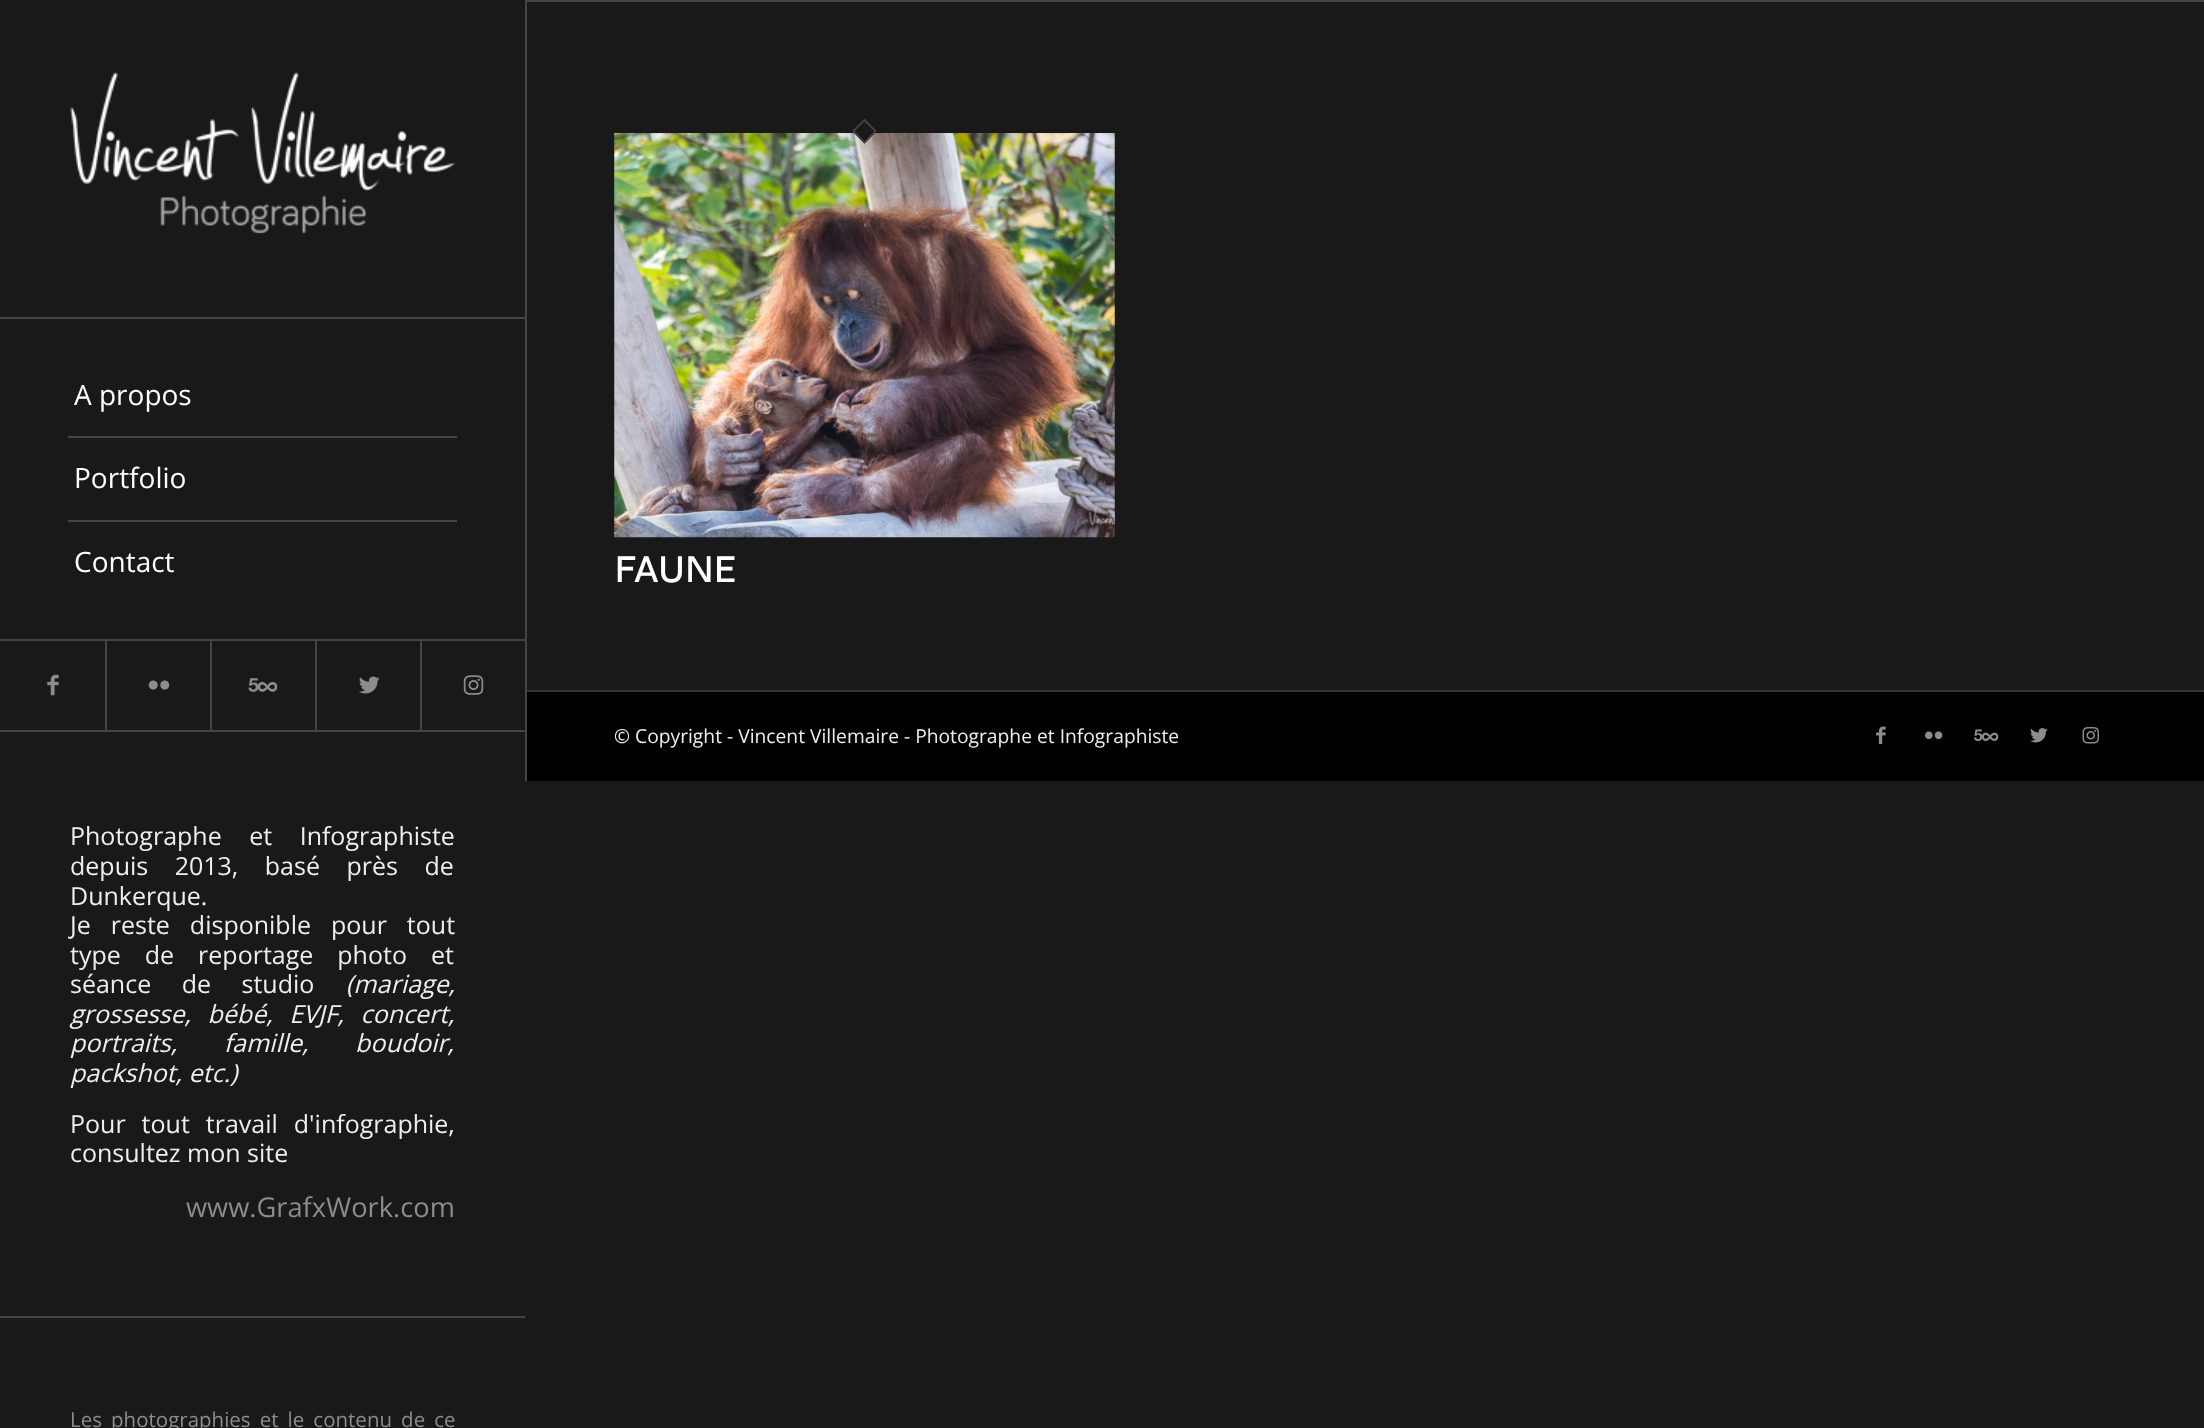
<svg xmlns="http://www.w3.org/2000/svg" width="2204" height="1428">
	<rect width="100%" height="100%" fill="#191919" />
	<rect x="0" y="317" width="525" height="2" fill="#444444" />
	<image x="70" y="72" width="385" height="162" href="assets/img1.png" />
	<rect x="68" y="436" width="389" height="2" fill="#444444" />
	<text x="74" y="405" font-family="Open Sans" font-size="28" fill="#FFFFFF">A propos</text>
	<rect x="68" y="520" width="389" height="2" fill="#444444" />
	<g font-family="Open Sans" font-size="28" fill="#FFFFFF">
		<text x="74" y="488">Portfolio</text>
		<text x="74" y="572">Contact</text>
	</g>
	<rect x="0" y="639" width="525" height="2" fill="#444444" />
	<image x="47" y="674" width="12" height="22" href="assets/img2.png" />
	<rect x="105" y="641" width="2" height="89" fill="#444444" />
	<image x="148" y="680" width="22" height="10" href="assets/img3.png" />
	<rect x="210" y="641" width="2" height="89" fill="#444444" />
	<image x="248" y="678" width="30" height="14" href="assets/img4.png" />
	<rect x="315" y="641" width="2" height="89" fill="#444444" />
	<image x="359" y="676" width="21" height="18" href="assets/img5.png" />
	<rect x="420" y="641" width="2" height="89" fill="#444444" />
	<image x="463" y="675" width="21" height="20" href="assets/img6.png" />
	<rect x="0" y="730" width="525" height="2" fill="#444444" />
	<g font-family="Open Sans" font-size="25" fill="#EEEEEE">
		<text x="70" y="845" word-spacing="21">Photographe et Infographiste</text>
		<text x="70" y="875" word-spacing="20">depuis 2013, basé près de</text>
		<text x="70" y="905">Dunkerque.</text>
		<text x="70" y="934" word-spacing="13.5">Je reste disponible pour tout</text>
		<text x="70" y="964" word-spacing="17.5">type de reportage photo et</text>
		<text x="70" y="993" word-spacing="24">séance de studio</text>
	</g>
	<g font-family="Open Sans" font-size="25" font-style="italic" fill="#EEEEEE">
		<text x="346" y="993">(mariage,</text>
		<text x="70" y="1023" word-spacing="10">grossesse, bébé, EVJF, concert,</text>
		<text x="70" y="1052" word-spacing="40">portraits, famille, boudoir,</text>
		<text x="70" y="1082">packshot, etc.)</text>
	</g>
	<g font-family="Open Sans" font-size="25" fill="#EEEEEE">
		<text x="70" y="1133" word-spacing="9.5">Pour tout travail d'infographie,</text>
		<text x="70" y="1162">consultez mon site</text>
	</g>
	<text x="186" y="1217" font-family="Open Sans" font-size="27.25" fill="#8C8C8C">www.GrafxWork.com</text>
	<rect x="0" y="1316" width="525" height="2" fill="#444444" />
	<text x="70" y="1427" word-spacing="3.75" font-family="Open Sans" font-size="20.5" fill="#8C8C8C">Les photographies et le contenu de ce</text>
	<rect x="525" y="0" width="2" height="781" fill="#444444" />
	<rect x="527" y="0" width="1677" height="2" fill="#444444" />
	<image x="614" y="133" width="501" height="405" href="assets/img7.png" />
	<path d="M864.5 119L877 131L864.5 143.5L852 131Z" fill="#191919" />
	<path d="M864.5 120L875.5 131L864.5 142.5L853.5 131Z" fill="none" stroke="#444444" stroke-width="1.8" />
	<text x="614" y="582" font-family="Metrophobic" font-size="35" font-weight="700" fill="#FFFFFF">FAUNE</text>
	<rect x="527" y="692" width="1677" height="89" fill="#000000" />
	<rect x="527" y="690" width="1677" height="2" fill="#333333" />
	<text x="614" y="743" font-family="Open Sans" font-size="19.25" fill="#EEEEEE">© Copyright - Vincent Villemaire - Photographe et Infographiste</text>
	<image x="1876" y="726" width="10" height="18" href="assets/img8.png" />
	<image x="1925" y="731" width="18" height="9" href="assets/img9.png" />
	<image x="1974" y="729" width="25" height="12" href="assets/img10.png" />
	<image x="2030" y="728" width="18" height="15" href="assets/img11.png" />
	<image x="2082" y="727" width="17" height="17" href="assets/img12.png" />
</svg>
